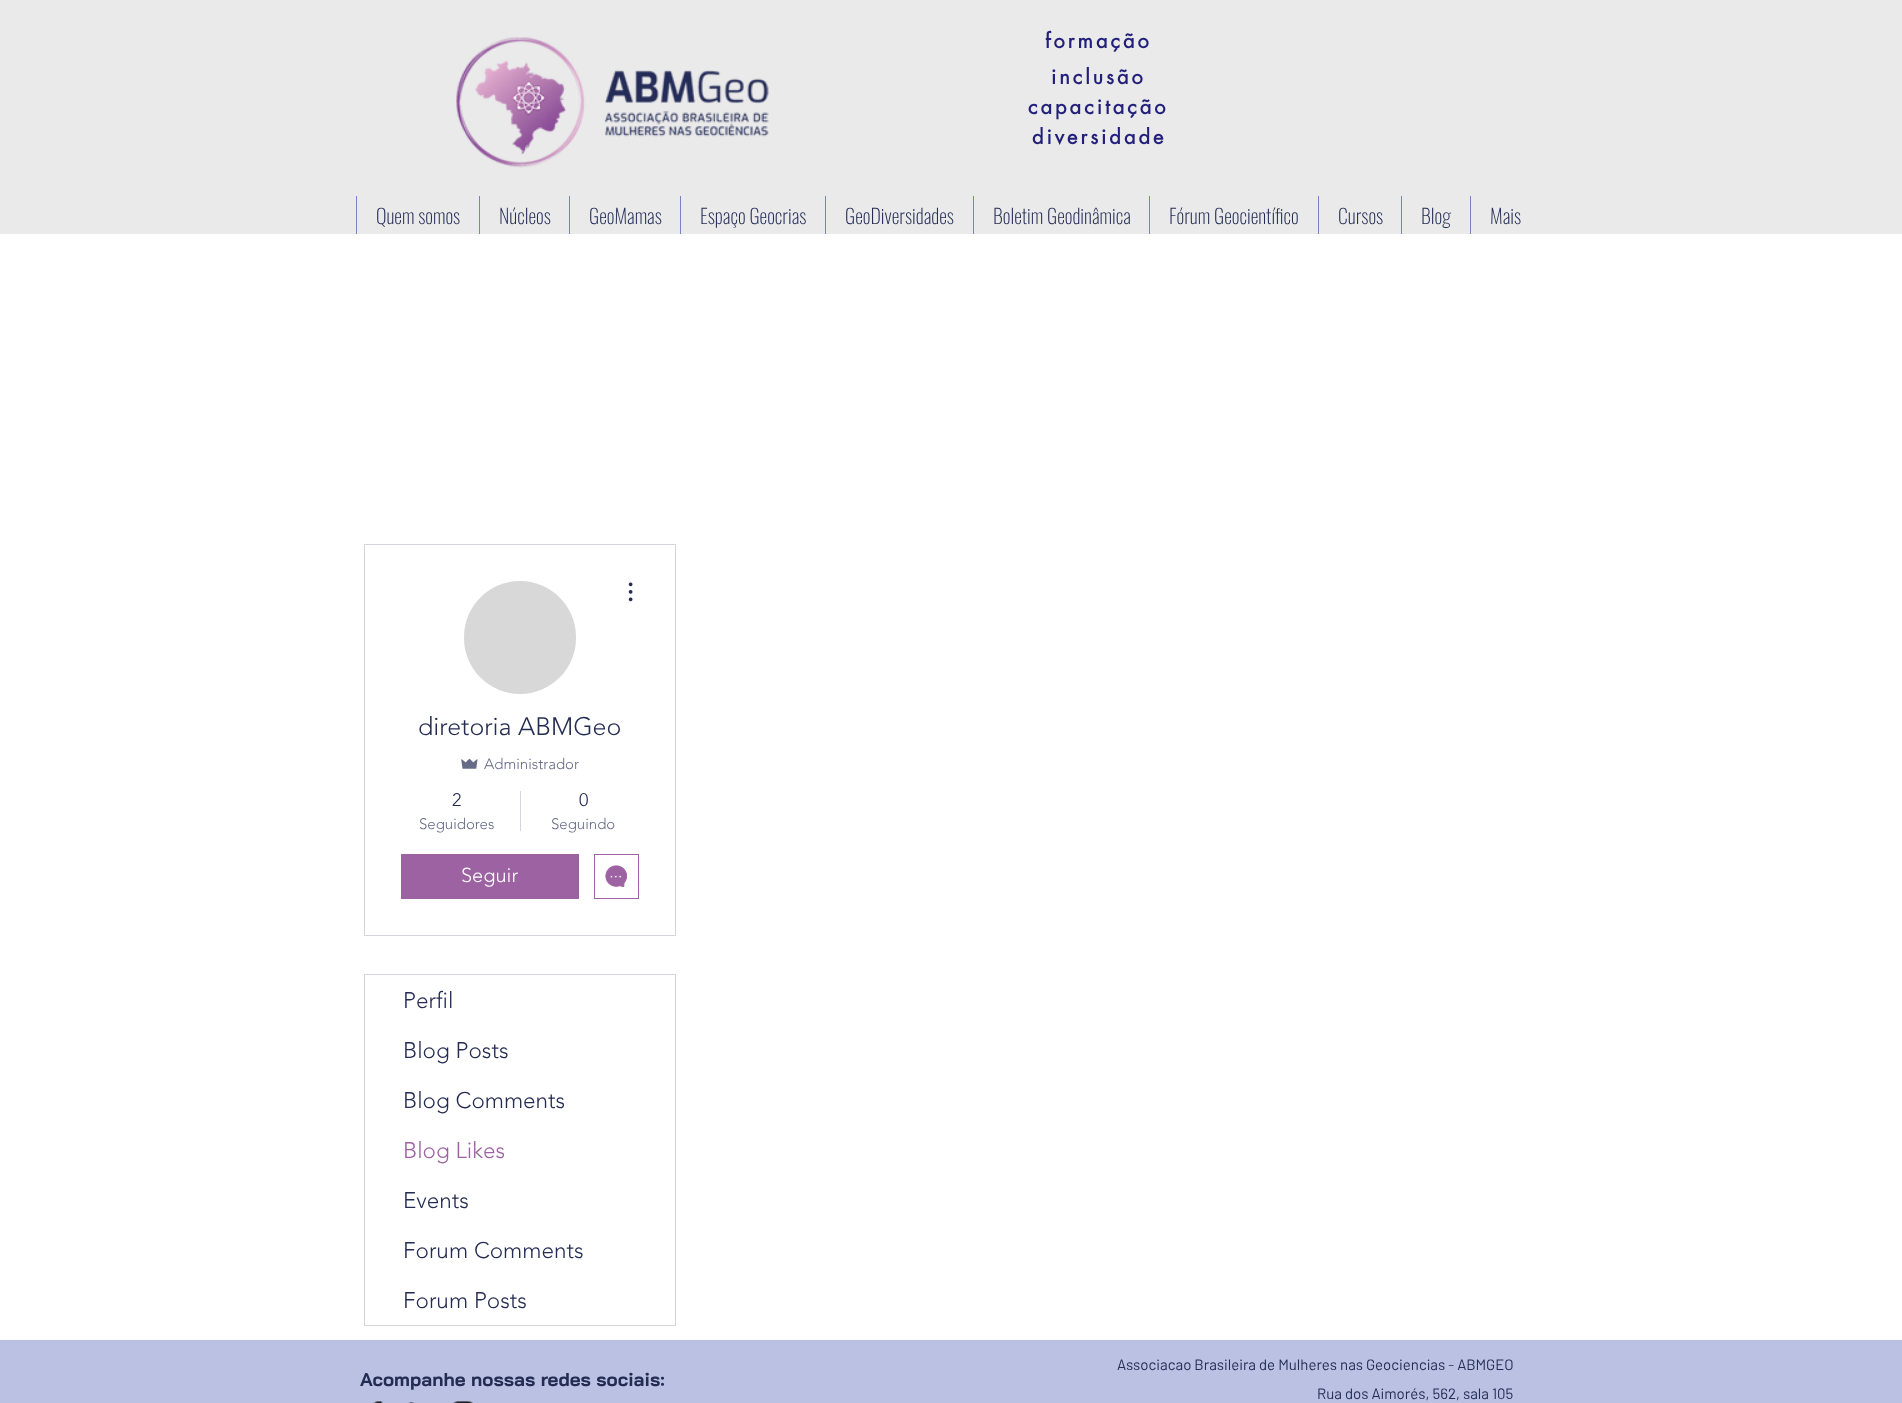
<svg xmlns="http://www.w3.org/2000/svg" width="1902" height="1403">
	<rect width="100%" height="100%" fill="#FFFFFF" />
	<rect x="0" y="0" width="1902" height="234" fill="#EAEAEA" />
	<image x="456" y="37" width="313" height="131" href="assets/img1.png" />
	<g font-family="futura" font-size="20" font-weight="700" letter-spacing="3" fill="#221F7B">
		<text x="1045" y="48">formação</text>
		<text x="1051" y="84">inclusão</text>
		<text x="1028" y="114">capacitação</text>
		<text x="1032" y="144">diversidade</text>
	</g>
	<rect x="356" y="196" width="1" height="38" fill="#7784C4" />
	<text x="376" y="224" font-family="Oswald" font-size="20" font-weight="200" fill="#242C54">Quem somos</text>
	<rect x="479" y="196" width="1" height="38" fill="#7784C4" />
	<text x="499" y="224" font-family="Oswald" font-size="20" font-weight="200" fill="#242C54">Núcleos</text>
	<rect x="569" y="196" width="1" height="38" fill="#7784C4" />
	<text x="589" y="224" font-family="Oswald" font-size="20" font-weight="200" fill="#242C54">GeoMamas</text>
	<rect x="680" y="196" width="1" height="38" fill="#7784C4" />
	<text x="700" y="224" font-family="Oswald" font-size="20" font-weight="200" fill="#242C54">Espaço Geocrias</text>
	<rect x="825" y="196" width="1" height="38" fill="#7784C4" />
	<text x="845" y="224" font-family="Oswald" font-size="20" font-weight="200" fill="#242C54">GeoDiversidades</text>
	<rect x="973" y="196" width="1" height="38" fill="#7784C4" />
	<text x="993" y="224" font-family="Oswald" font-size="20" font-weight="200" fill="#242C54">Boletim Geodinâmica</text>
	<rect x="1149" y="196" width="1" height="38" fill="#7784C4" />
	<text x="1169" y="224" font-family="Oswald" font-size="20" font-weight="200" fill="#242C54">Fórum Geocientífico</text>
	<rect x="1318" y="196" width="1" height="38" fill="#7784C4" />
	<text x="1338" y="224" font-family="Oswald" font-size="20" font-weight="200" fill="#242C54">Cursos</text>
	<rect x="1401" y="196" width="1" height="38" fill="#7784C4" />
	<text x="1421" y="224" font-family="Oswald" font-size="20" font-weight="200" fill="#242C54">Blog</text>
	<rect x="1470" y="196" width="1" height="38" fill="#7784C4" />
	<text x="1490" y="224" font-family="Oswald" font-size="20" font-weight="200" fill="#242C54">Mais</text>
	<rect x="364.5" y="544.5" width="311" height="391" fill="none" stroke="#D3D5DD" />
	<rect x="464" y="581" width="112" height="113" rx="56" fill="#D8D8D8" />
	<image x="628" y="582" width="5" height="20" href="assets/img2.png" />
	<text x="418" y="735" font-family="'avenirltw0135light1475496'" font-size="25" font-weight="300" fill="#242C54">diretoria ABMGeo</text>
	<image x="461" y="758" width="17" height="11" href="assets/img3.png" />
	<text x="484" y="769" font-family="'avenirltw0135light1475496'" font-size="15" font-weight="300" fill="#666B87">Administrador</text>
	<text x="452" y="806" font-family="'avenirltw0135light1475496'" font-size="18" font-weight="300" fill="#242C54">2</text>
	<text x="419" y="829" font-family="'avenirltw0135light1475496'" font-size="15" font-weight="300" fill="#666B87">Seguidores</text>
	<rect x="520" y="791" width="1" height="40" fill="#D3D5DD" />
	<text x="579" y="806" font-family="'avenirltw0135light1475496'" font-size="18" font-weight="300" fill="#242C54">0</text>
	<text x="551" y="829" font-family="'avenirltw0135light1475496'" font-size="15" font-weight="300" fill="#666B87">Seguindo</text>
	<rect x="401" y="854" width="178" height="45" fill="#9D62A2" />
	<text x="461" y="882" font-family="'avenirltw0135light1475496'" font-size="20" font-weight="300" fill="#FFFFFF">Seguir</text>
	<rect x="594.5" y="854.5" width="44" height="44" fill="none" stroke="#9D62A2" />
	<image x="605" y="865" width="23" height="22" href="assets/img4.png" />
	<rect x="364.5" y="974.5" width="311" height="351" fill="none" stroke="#D3D5DD" />
	<g font-family="'avenirltw0135light1475496'" font-size="22.5" font-weight="300" fill="#242C54">
		<text x="403" y="1008">Perfil</text>
		<text x="403" y="1058">Blog Posts</text>
		<text x="403" y="1108">Blog Comments</text>
	</g>
	<text x="403" y="1158" font-family="'avenirltw0135light1475496'" font-size="22.5" font-weight="300" fill="#9D62A2">Blog Likes</text>
	<g font-family="'avenirltw0135light1475496'" font-size="22.5" font-weight="300" fill="#242C54">
		<text x="403" y="1208">Events</text>
		<text x="403" y="1258">Forum Comments</text>
		<text x="403" y="1308">Forum Posts</text>
	</g>
	<rect x="0" y="1339" width="1902" height="1" fill="#FCFBFC" />
	<rect x="0" y="1340" width="1902" height="63" fill="#BBC1E2" />
	<text x="360" y="1386" font-family="Bai Jamjuree" font-size="18.75" font-weight="700" fill="#242C54">Acompanhe nossas redes sociais:</text>
	<image x="373" y="1401" width="10" height="2" href="assets/img5.png" />
	<image x="408" y="1402" width="6" height="1" href="assets/img6.png" />
	<image x="453" y="1401" width="21" height="2" href="assets/img7.png" />
	<g font-family="Barlow" font-size="15" fill="#242C54">
		<text x="1117" y="1370">Associacao Brasileira de Mulheres nas Geociencias - ABMGEO</text>
		<text x="1317" y="1399">Rua dos Aimorés, 562, sala 105</text>
	</g>
</svg>
